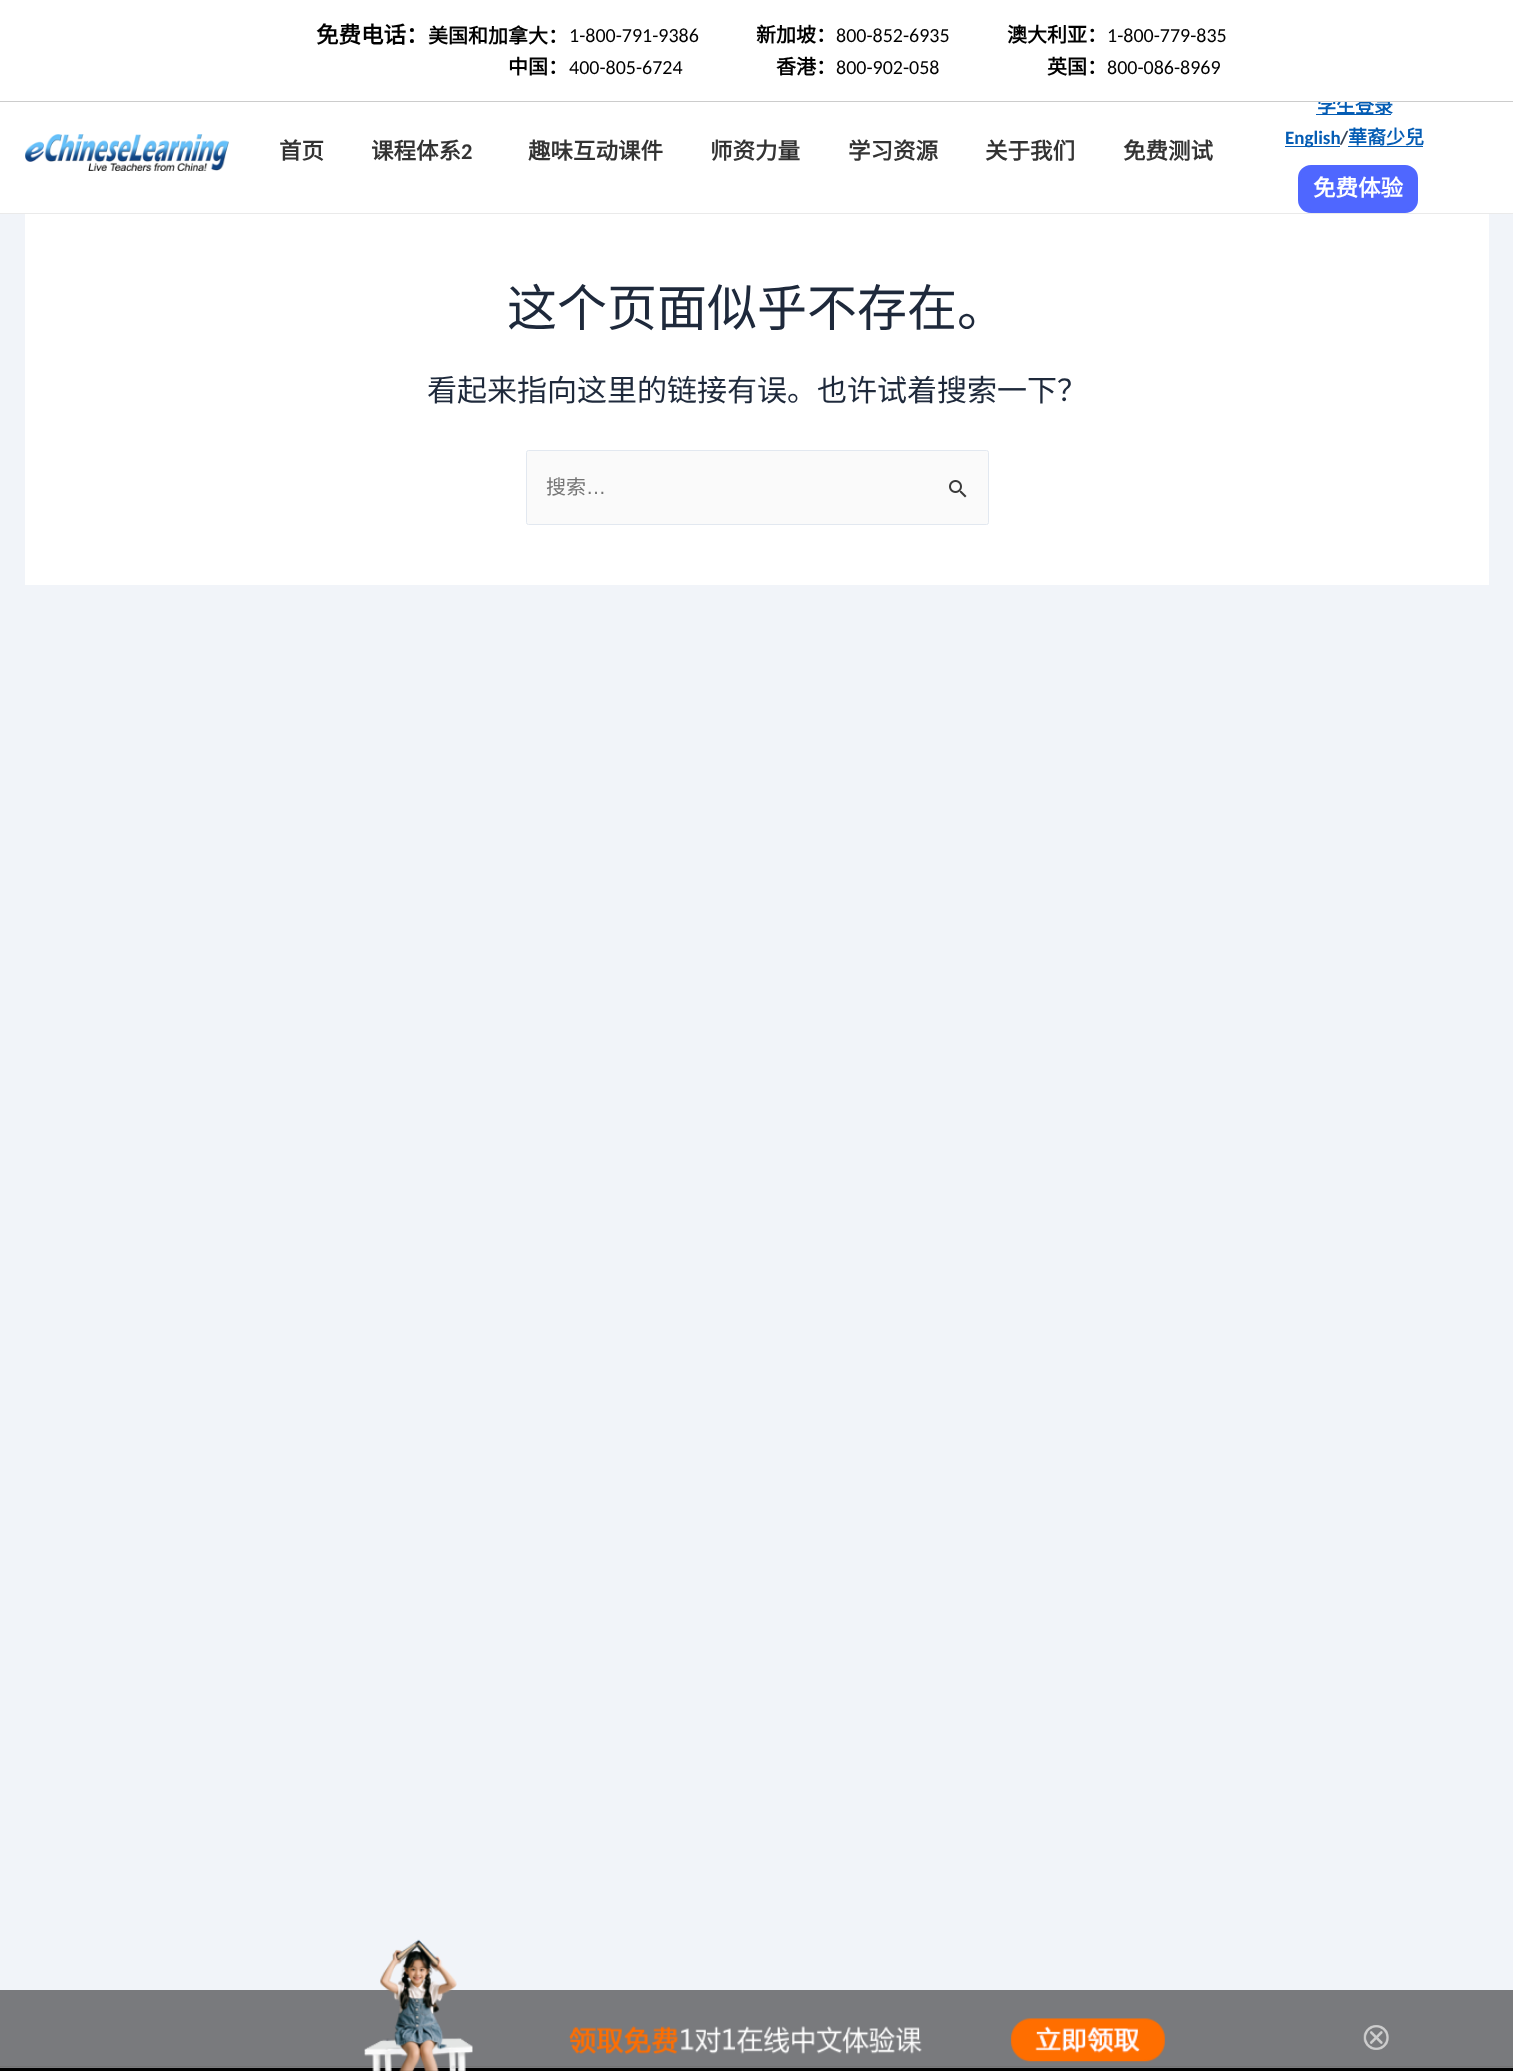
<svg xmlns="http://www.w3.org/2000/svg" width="1513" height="2071">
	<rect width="100%" height="100%" fill="#F1F4F9" />
	<rect x="0" y="1990" width="1513" height="78" fill="#797A7D" />
	<rect x="0" y="102" width="1513" height="111" fill="#FFFFFF" />
	<rect x="1316" y="114" width="75" height="1" fill="#045CB4" />
	<text x="1317" y="113" font-family="Noto Sans CJK SC" font-size="19" font-weight="700" fill="#045CB4">学生登录</text>
	<rect x="0" y="0" width="1513" height="101" fill="#FFFFFF" />
	<rect x="0" y="101" width="1513" height="1" fill="#CCCCCC" />
	<text x="316" y="43" font-family="Noto Sans CJK SC" font-size="22.5" font-weight="700" fill="#000000">免费电话：</text>
	<text x="428" y="43" font-family="Noto Sans CJK SC" font-size="20" font-weight="700" fill="#000000">美国和加拿大：</text>
	<text x="569" y="42" font-family="Carlito" font-size="20" fill="#000000">1-800-791-9386</text>
	<text x="756" y="42" font-family="Noto Sans CJK SC" font-size="20" font-weight="700" fill="#000000">新加坡：</text>
	<text x="836" y="42" font-family="Carlito" font-size="20" fill="#000000">800-852-6935</text>
	<text x="1007" y="42" font-family="Noto Sans CJK SC" font-size="20" font-weight="700" fill="#000000">澳大利亚：</text>
	<text x="1107" y="42" font-family="Carlito" font-size="20" fill="#000000">1-800-779-835</text>
	<text x="508" y="74" font-family="Noto Sans CJK SC" font-size="20" font-weight="700" fill="#000000">中国：</text>
	<text x="569" y="74" font-family="Carlito" font-size="20" fill="#000000">400-805-6724</text>
	<text x="776" y="74" font-family="Noto Sans CJK SC" font-size="20" font-weight="700" fill="#000000">香港：</text>
	<text x="836" y="74" font-family="Carlito" font-size="20" fill="#000000">800-902-058</text>
	<text x="1047" y="74" font-family="Noto Sans CJK SC" font-size="20" font-weight="700" fill="#000000">英国：</text>
	<text x="1107" y="74" font-family="Carlito" font-size="20" fill="#000000">800-086-8969</text>
	<rect x="0" y="213" width="1513" height="1" fill="#EAEAEA" />
	<image x="25" y="134" width="204" height="37" href="assets/img1.png" />
	<g font-family="Noto Sans CJK SC" font-size="22.5" font-weight="700" fill="#333333">
		<text x="279" y="159">首页</text>
		<text x="371" y="159">课程体系</text>
	</g>
	<text x="461" y="159" font-family="Carlito" font-size="22.5" font-weight="700" fill="#333333">2</text>
	<g font-family="Noto Sans CJK SC" font-size="22.5" font-weight="700" fill="#333333">
		<text x="528" y="159">趣味互动课件</text>
		<text x="710" y="159">师资力量</text>
		<text x="848" y="159">学习资源</text>
		<text x="985" y="159">关于我们</text>
		<text x="1123" y="159">免费测试</text>
	</g>
	<rect x="1285" y="146" width="55" height="1" fill="#045CB4" />
	<text x="1285" y="144" font-family="Carlito" font-size="19" font-weight="700" fill="#045CB4">English</text>
	<text x="1340" y="144" font-family="Carlito" font-size="19" font-weight="700" fill="#334155">/</text>
	<text x="1348" y="144" font-family="Noto Sans CJK SC" font-size="19" font-weight="700" fill="#045CB4">華裔少兒</text>
	<rect x="1348" y="146" width="75" height="1" fill="#045CB4" />
	<rect x="1299.5" y="166.5" width="117" height="45" rx="11.5" fill="#4F67FF" stroke="#4F67FF" stroke-width="3" />
	<text x="1313" y="196" font-family="Noto Sans CJK SC" font-size="22.5" font-weight="700" fill="#FFFFFF">免费体验</text>
	<rect x="25" y="214" width="1464" height="371" fill="#FFFFFF" />
	<text x="507" y="326" font-family="Noto Sans CJK SC" font-size="50" fill="#1E293B">这个页面似乎不存在。</text>
	<text x="427" y="401" font-family="Noto Sans CJK SC" font-size="30" fill="#1E293B">看起来指向这里的链接有误。也许试着搜索一下？</text>
	<rect x="526.5" y="450.5" width="462" height="74" rx="2" fill="#FAFAFA" stroke="#E2E8F0" />
	<text x="546" y="494" font-family="Noto Sans CJK SC" font-size="20" fill="#757575">搜索</text>
	<text x="586" y="494" font-family="Liberation Sans" font-size="20" fill="#757575">…</text>
	<image x="949" y="480" width="18" height="18" href="assets/img2.png" />
	<rect x="0" y="2068" width="1513" height="3" fill="#010101" />
	<rect x="0" y="2066" width="1513" height="1" fill="#737373" />
	<image x="364" y="1939" width="801" height="132" href="assets/img3.png" />
	<image x="1363" y="2025" width="26" height="25" href="assets/img4.png" />
</svg>
